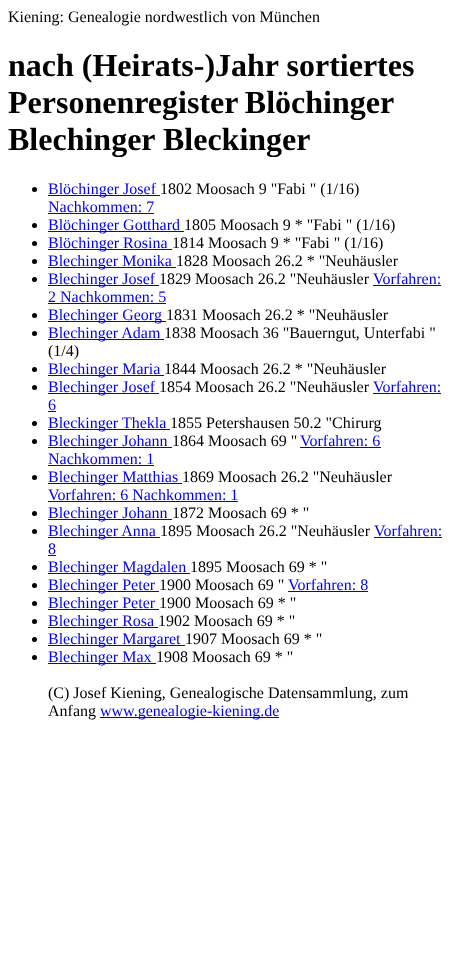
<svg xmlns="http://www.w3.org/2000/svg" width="460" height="964">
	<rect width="100%" height="100%" fill="#FFFFFF" />
	<text x="8" y="22" font-family="Liberation Serif" font-size="16" fill="#000000">Kiening: Genealogie nordwestlich von München</text>
	<g font-family="Liberation Serif" font-size="32" font-weight="700" fill="#000000">
		<text x="8" y="76">nach (Heirats-)Jahr sortiertes</text>
		<text x="8" y="113" word-spacing="-1">Personenregister Blöchinger</text>
		<text x="8" y="150">Blechinger Bleckinger</text>
	</g>
	<circle cx="34.5" cy="189.5" r="2.5" fill="#000000" />
	<rect x="48" y="195" width="112" height="1" fill="#0000EE" />
	<text x="48" y="194" font-family="Liberation Serif" font-size="16" fill="#0000EE">Blöchinger Josef</text>
	<text x="160" y="194" font-family="Liberation Serif" font-size="16" fill="#000000">1802 Moosach 9 "Fabi " (1/16)</text>
	<text x="48" y="212" font-family="Liberation Serif" font-size="16" fill="#0000EE">Nachkommen: 7</text>
	<rect x="48" y="213" width="106" height="1" fill="#0000EE" />
	<circle cx="34.5" cy="225.5" r="2.5" fill="#000000" />
	<rect x="48" y="231" width="136" height="1" fill="#0000EE" />
	<text x="48" y="230" font-family="Liberation Serif" font-size="16" fill="#0000EE">Blöchinger Gotthard</text>
	<text x="184" y="230" font-family="Liberation Serif" font-size="16" fill="#000000">1805 Moosach 9 * "Fabi " (1/16)</text>
	<circle cx="34.5" cy="243.5" r="2.5" fill="#000000" />
	<rect x="48" y="249" width="124" height="1" fill="#0000EE" />
	<text x="48" y="248" font-family="Liberation Serif" font-size="16" fill="#0000EE">Blöchinger Rosina</text>
	<text x="172" y="248" font-family="Liberation Serif" font-size="16" fill="#000000">1814 Moosach 9 * "Fabi " (1/16)</text>
	<circle cx="34.5" cy="261.5" r="2.5" fill="#000000" />
	<rect x="48" y="267" width="128" height="1" fill="#0000EE" />
	<text x="48" y="266" font-family="Liberation Serif" font-size="16" fill="#0000EE">Blechinger Monika</text>
	<text x="176" y="266" font-family="Liberation Serif" font-size="16" fill="#000000">1828 Moosach 26.2 * "Neuhäusler</text>
	<circle cx="34.5" cy="279.5" r="2.5" fill="#000000" />
	<rect x="48" y="285" width="111" height="1" fill="#0000EE" />
	<text x="48" y="284" font-family="Liberation Serif" font-size="16" fill="#0000EE">Blechinger Josef</text>
	<text x="159" y="284" font-family="Liberation Serif" font-size="16" fill="#000000">1829 Moosach 26.2 "Neuhäusler</text>
	<text x="373" y="284" font-family="Liberation Serif" font-size="16" fill="#0000EE">Vorfahren:</text>
	<rect x="373" y="285" width="68" height="1" fill="#0000EE" />
	<text x="48" y="302" font-family="Liberation Serif" font-size="16" fill="#0000EE">2 Nachkommen: 5</text>
	<rect x="48" y="303" width="118" height="1" fill="#0000EE" />
	<circle cx="34.5" cy="315.5" r="2.5" fill="#000000" />
	<rect x="48" y="321" width="118" height="1" fill="#0000EE" />
	<text x="48" y="320" font-family="Liberation Serif" font-size="16" fill="#0000EE">Blechinger Georg</text>
	<text x="166" y="320" font-family="Liberation Serif" font-size="16" fill="#000000">1831 Moosach 26.2 * "Neuhäusler</text>
	<circle cx="34.5" cy="333.5" r="2.5" fill="#000000" />
	<rect x="48" y="339" width="116" height="1" fill="#0000EE" />
	<text x="48" y="338" font-family="Liberation Serif" font-size="16" fill="#0000EE">Blechinger Adam</text>
	<g font-family="Liberation Serif" font-size="16" fill="#000000">
		<text x="164" y="338">1838 Moosach 36 "Bauerngut, Unterfabi "</text>
		<text x="48" y="356">(1/4)</text>
	</g>
	<circle cx="34.5" cy="369.5" r="2.5" fill="#000000" />
	<rect x="48" y="375" width="116" height="1" fill="#0000EE" />
	<text x="48" y="374" font-family="Liberation Serif" font-size="16" fill="#0000EE">Blechinger Maria</text>
	<text x="164" y="374" font-family="Liberation Serif" font-size="16" fill="#000000">1844 Moosach 26.2 * "Neuhäusler</text>
	<circle cx="34.5" cy="387.5" r="2.5" fill="#000000" />
	<rect x="48" y="393" width="111" height="1" fill="#0000EE" />
	<text x="48" y="392" font-family="Liberation Serif" font-size="16" fill="#0000EE">Blechinger Josef</text>
	<text x="159" y="392" font-family="Liberation Serif" font-size="16" fill="#000000">1854 Moosach 26.2 "Neuhäusler</text>
	<text x="373" y="392" font-family="Liberation Serif" font-size="16" fill="#0000EE">Vorfahren:</text>
	<rect x="373" y="393" width="68" height="1" fill="#0000EE" />
	<text x="48" y="410" font-family="Liberation Serif" font-size="16" fill="#0000EE">6</text>
	<rect x="48" y="411" width="8" height="1" fill="#0000EE" />
	<circle cx="34.5" cy="423.5" r="2.5" fill="#000000" />
	<rect x="48" y="429" width="122" height="1" fill="#0000EE" />
	<text x="48" y="428" font-family="Liberation Serif" font-size="16" fill="#0000EE">Bleckinger Thekla</text>
	<text x="170" y="428" font-family="Liberation Serif" font-size="16" fill="#000000">1855 Petershausen 50.2 "Chirurg</text>
	<circle cx="34.5" cy="441.5" r="2.5" fill="#000000" />
	<rect x="48" y="447" width="124" height="1" fill="#0000EE" />
	<text x="48" y="446" font-family="Liberation Serif" font-size="16" fill="#0000EE">Blechinger Johann</text>
	<text x="172" y="446" font-family="Liberation Serif" font-size="16" fill="#000000">1864 Moosach 69 "</text>
	<text x="300" y="446" font-family="Liberation Serif" font-size="16" fill="#0000EE">Vorfahren: 6</text>
	<rect x="300" y="447" width="81" height="1" fill="#0000EE" />
	<text x="48" y="464" font-family="Liberation Serif" font-size="16" fill="#0000EE">Nachkommen: 1</text>
	<rect x="48" y="465" width="106" height="1" fill="#0000EE" />
	<circle cx="34.5" cy="477.5" r="2.5" fill="#000000" />
	<rect x="48" y="483" width="134" height="1" fill="#0000EE" />
	<text x="48" y="482" font-family="Liberation Serif" font-size="16" fill="#0000EE">Blechinger Matthias</text>
	<text x="182" y="482" font-family="Liberation Serif" font-size="16" fill="#000000">1869 Moosach 26.2 "Neuhäusler</text>
	<text x="48" y="500" font-family="Liberation Serif" font-size="16" fill="#0000EE">Vorfahren: 6 Nachkommen: 1</text>
	<rect x="48" y="501" width="190" height="1" fill="#0000EE" />
	<circle cx="34.5" cy="513.5" r="2.5" fill="#000000" />
	<rect x="48" y="519" width="124" height="1" fill="#0000EE" />
	<text x="48" y="518" font-family="Liberation Serif" font-size="16" fill="#0000EE">Blechinger Johann</text>
	<text x="172" y="518" font-family="Liberation Serif" font-size="16" fill="#000000">1872 Moosach 69 * "</text>
	<circle cx="34.5" cy="531.5" r="2.5" fill="#000000" />
	<rect x="48" y="537" width="112" height="1" fill="#0000EE" />
	<text x="48" y="536" font-family="Liberation Serif" font-size="16" fill="#0000EE">Blechinger Anna</text>
	<text x="160" y="536" font-family="Liberation Serif" font-size="16" fill="#000000">1895 Moosach 26.2 "Neuhäusler</text>
	<text x="374" y="536" font-family="Liberation Serif" font-size="16" fill="#0000EE">Vorfahren:</text>
	<rect x="374" y="537" width="68" height="1" fill="#0000EE" />
	<text x="48" y="554" font-family="Liberation Serif" font-size="16" fill="#0000EE">8</text>
	<rect x="48" y="555" width="8" height="1" fill="#0000EE" />
	<circle cx="34.5" cy="567.5" r="2.5" fill="#000000" />
	<rect x="48" y="573" width="142" height="1" fill="#0000EE" />
	<text x="48" y="572" font-family="Liberation Serif" font-size="16" fill="#0000EE">Blechinger Magdalen</text>
	<text x="190" y="572" font-family="Liberation Serif" font-size="16" fill="#000000">1895 Moosach 69 * "</text>
	<circle cx="34.5" cy="585.5" r="2.5" fill="#000000" />
	<rect x="48" y="591" width="111" height="1" fill="#0000EE" />
	<text x="48" y="590" font-family="Liberation Serif" font-size="16" fill="#0000EE">Blechinger Peter</text>
	<text x="159" y="590" font-family="Liberation Serif" font-size="16" fill="#000000">1900 Moosach 69 "</text>
	<text x="288" y="590" font-family="Liberation Serif" font-size="16" fill="#0000EE">Vorfahren: 8</text>
	<rect x="288" y="591" width="80" height="1" fill="#0000EE" />
	<circle cx="34.5" cy="603.5" r="2.5" fill="#000000" />
	<rect x="48" y="609" width="111" height="1" fill="#0000EE" />
	<text x="48" y="608" font-family="Liberation Serif" font-size="16" fill="#0000EE">Blechinger Peter</text>
	<text x="159" y="608" font-family="Liberation Serif" font-size="16" fill="#000000">1900 Moosach 69 * "</text>
	<circle cx="34.5" cy="621.5" r="2.5" fill="#000000" />
	<rect x="48" y="627" width="110" height="1" fill="#0000EE" />
	<text x="48" y="626" font-family="Liberation Serif" font-size="16" fill="#0000EE">Blechinger Rosa</text>
	<text x="158" y="626" font-family="Liberation Serif" font-size="16" fill="#000000">1902 Moosach 69 * "</text>
	<circle cx="34.5" cy="639.5" r="2.5" fill="#000000" />
	<rect x="48" y="645" width="137" height="1" fill="#0000EE" />
	<text x="48" y="644" font-family="Liberation Serif" font-size="16" fill="#0000EE">Blechinger Margaret</text>
	<text x="185" y="644" font-family="Liberation Serif" font-size="16" fill="#000000">1907 Moosach 69 * "</text>
	<circle cx="34.5" cy="657.5" r="2.5" fill="#000000" />
	<rect x="48" y="663" width="108" height="1" fill="#0000EE" />
	<text x="48" y="662" font-family="Liberation Serif" font-size="16" fill="#0000EE">Blechinger Max</text>
	<g font-family="Liberation Serif" font-size="16" fill="#000000">
		<text x="156" y="662">1908 Moosach 69 * "</text>
		<text x="48" y="698">(C) Josef Kiening, Genealogische Datensammlung, zum</text>
		<text x="48" y="716">Anfang</text>
	</g>
	<rect x="100" y="717" width="179" height="1" fill="#0000EE" />
	<text x="100" y="716" font-family="Liberation Serif" font-size="16" fill="#0000EE">www.genealogie-kiening.de</text>
</svg>
